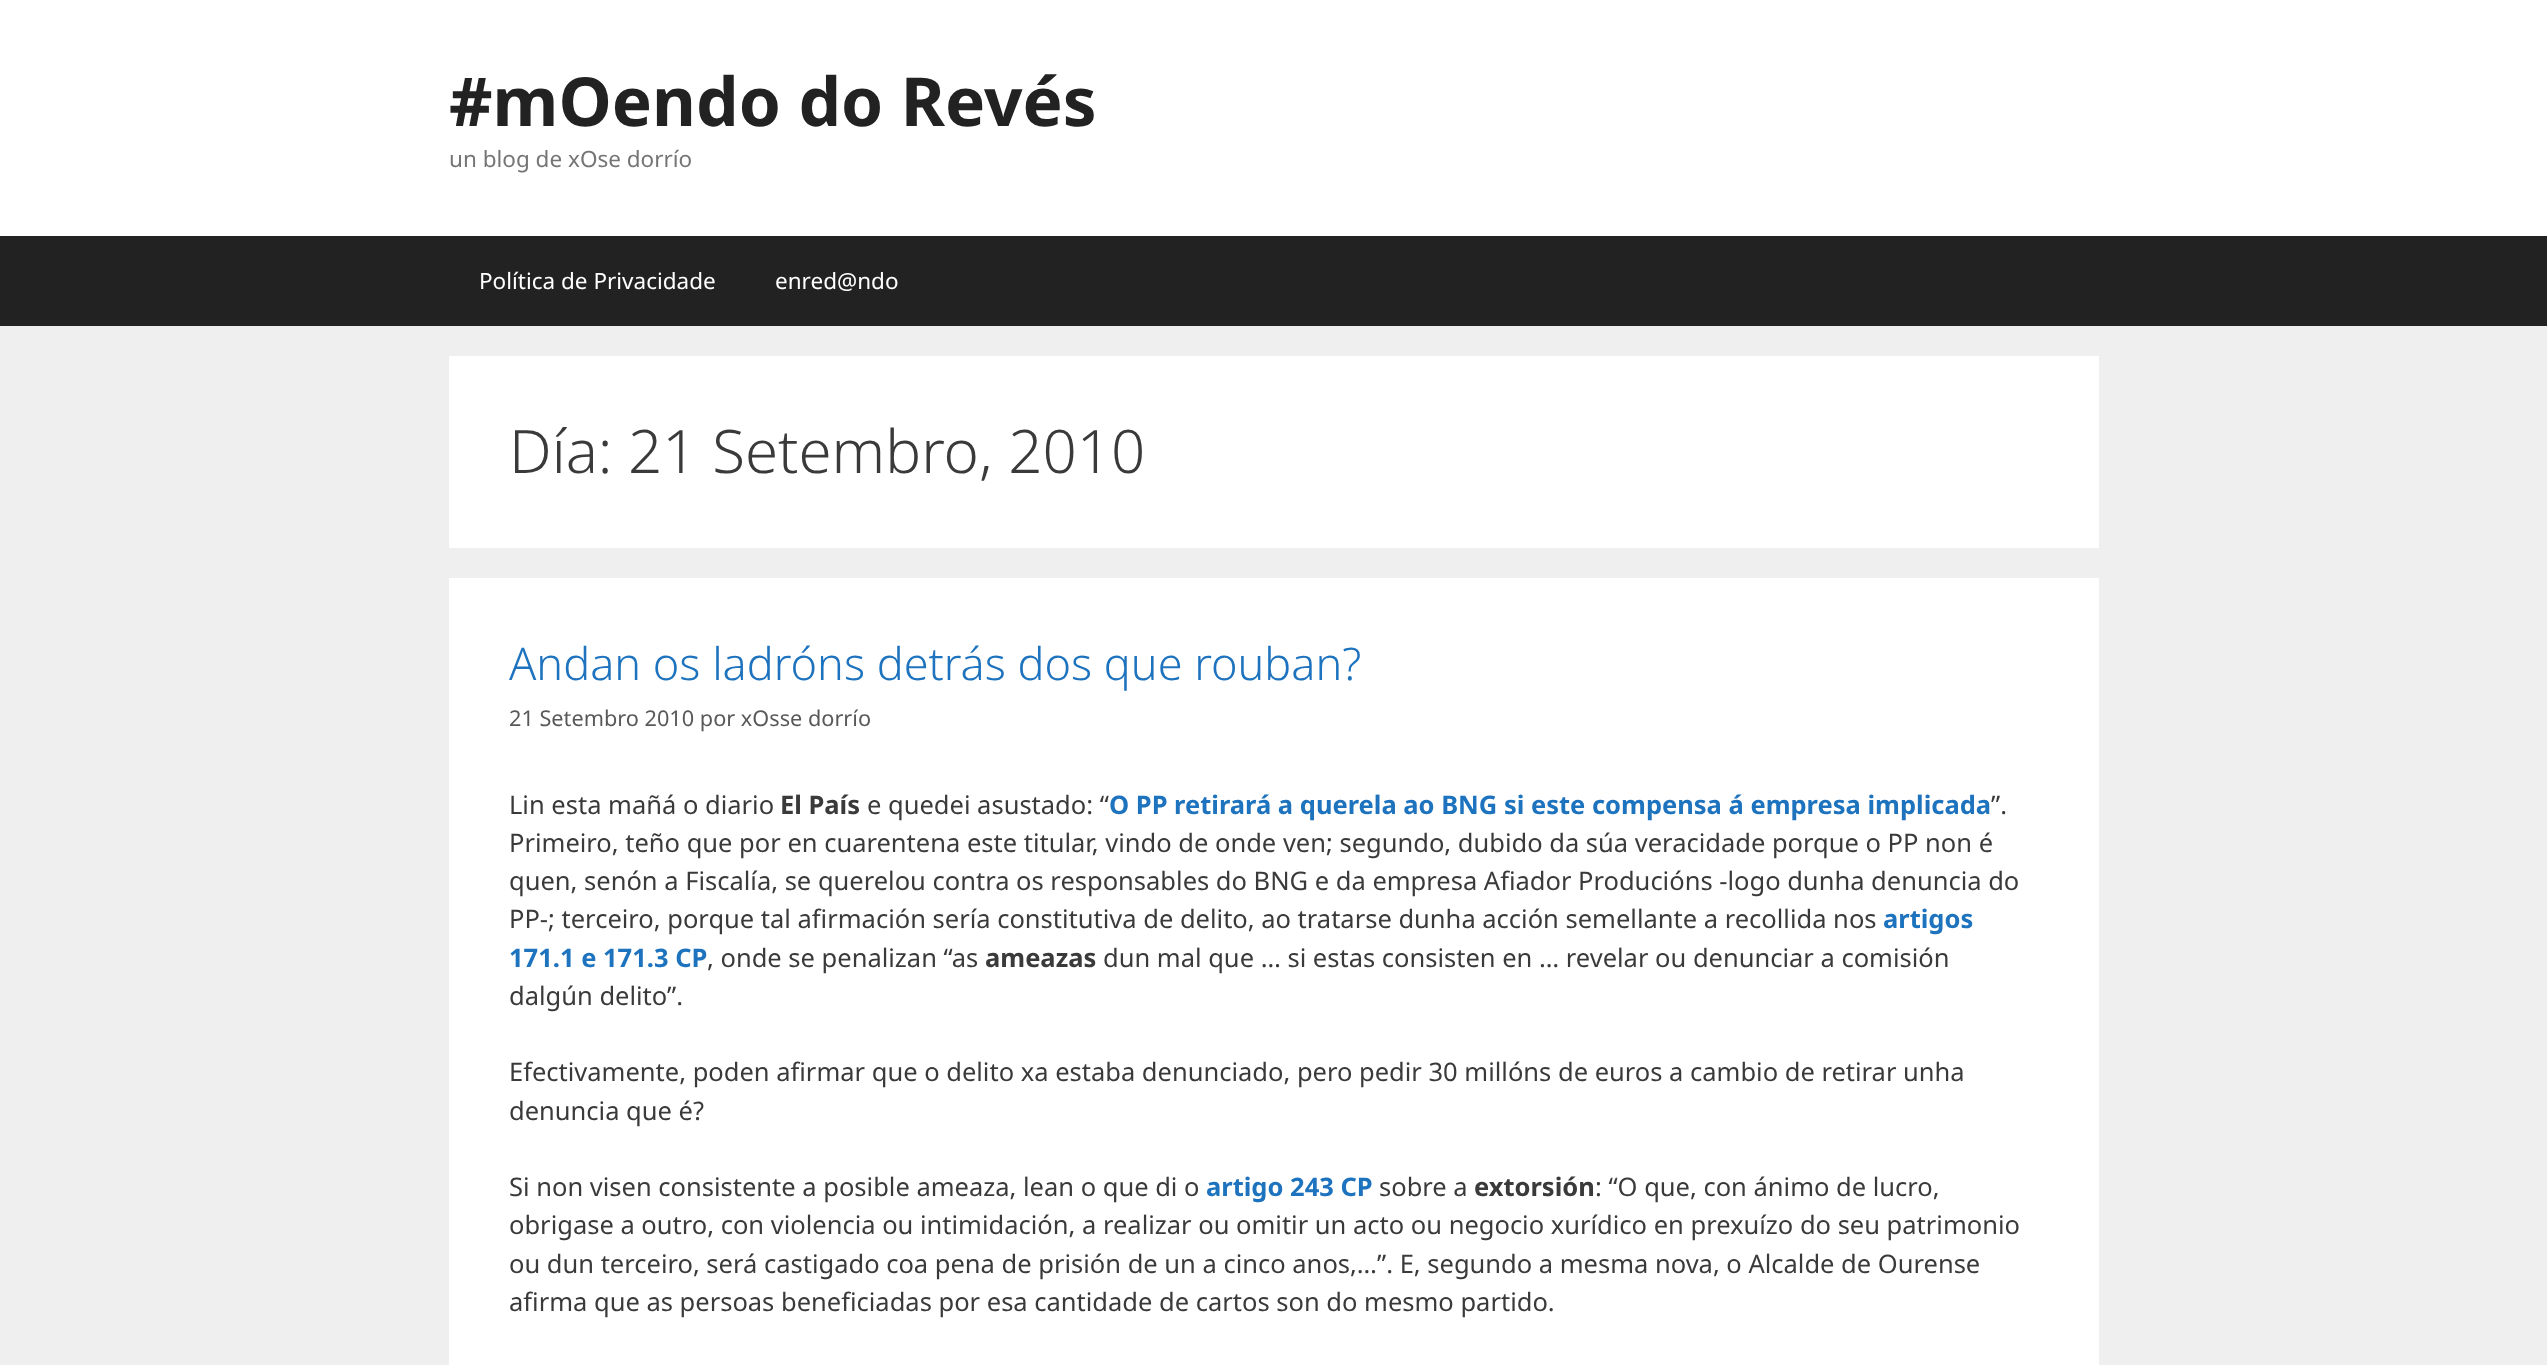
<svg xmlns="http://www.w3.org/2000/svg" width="2547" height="1365">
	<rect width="100%" height="100%" fill="#EFEFEF" />
	<rect x="0" y="0" width="2547" height="236" fill="#FFFFFF" />
	<text x="449" y="126" font-family="Noto Sans" font-size="67.5" font-weight="700" fill="#222222">#mOendo do Revés</text>
	<text x="449" y="167" font-family="Noto Sans" font-size="22.5" fill="#757575">un blog de xOse dorrío</text>
	<rect x="0" y="236" width="2547" height="90" fill="#222222" />
	<g font-family="Noto Sans" font-size="22.5" fill="#FFFFFF">
		<text x="479" y="289">Política de Privacidade</text>
		<text x="775" y="289">enred@ndo</text>
	</g>
	<rect x="449" y="356" width="1650" height="192" fill="#FFFFFF" />
	<text x="509" y="473" font-family="Noto Sans" font-size="60" font-weight="300" fill="#3A3A3A">Día: 21 Setembro, 2010</text>
	<rect x="449" y="578" width="1650" height="787" fill="#FFFFFF" />
	<text x="509" y="680" font-family="Noto Sans" font-size="45" font-weight="300" fill="#1E73BE">Andan os ladróns detrás dos que rouban?</text>
	<text x="509" y="726" font-family="Noto Sans" font-size="21.7" fill="#595959">21 Setembro 2010 por xOsse dorrío</text>
	<text x="509" y="814" font-family="Noto Sans" font-size="25.5" fill="#3A3A3A">Lin esta mañá o diario</text>
	<text x="780" y="814" font-family="Noto Sans" font-size="25.5" font-weight="700" fill="#3A3A3A">El País</text>
	<text x="867" y="814" font-family="Noto Sans" font-size="25.5" fill="#3A3A3A">e quedei asustado: “</text>
	<text x="1109" y="814" font-family="Noto Sans" font-size="25.5" font-weight="700" fill="#1E73BE">O PP retirará a querela ao BNG si este compensa á empresa implicada</text>
	<g font-family="Noto Sans" font-size="25.5" fill="#3A3A3A">
		<text x="1991" y="814">”.</text>
		<text x="509" y="852">Primeiro, teño que por en cuarentena este titular, vindo de onde ven; segundo, dubido da súa veracidade porque o PP non é</text>
		<text x="509" y="890">quen, senón a Fiscalía, se querelou contra os responsables do BNG e da empresa Afiador Producións -logo dunha denuncia do</text>
		<text x="509" y="928">PP-; terceiro, porque tal afirmación sería constitutiva de delito, ao tratarse dunha acción semellante a recollida nos</text>
	</g>
	<g font-family="Noto Sans" font-size="25.5" font-weight="700" fill="#1E73BE">
		<text x="1883" y="928">artigos</text>
		<text x="509" y="967">171.1 e 171.3 CP</text>
	</g>
	<text x="707" y="967" font-family="Noto Sans" font-size="25.5" fill="#3A3A3A">, onde se penalizan “as</text>
	<text x="985" y="967" font-family="Noto Sans" font-size="25.5" font-weight="700" fill="#3A3A3A">ameazas</text>
	<g font-family="Noto Sans" font-size="25.5" fill="#3A3A3A">
		<text x="1103" y="967">dun mal que … si estas consisten en … revelar ou denunciar a comisión</text>
		<text x="509" y="1005">dalgún delito”.</text>
		<text x="509" y="1081">Efectivamente, poden afirmar que o delito xa estaba denunciado, pero pedir 30 millóns de euros a cambio de retirar unha</text>
		<text x="509" y="1120">denuncia que é?</text>
		<text x="509" y="1196">Si non visen consistente a posible ameaza, lean o que di o</text>
	</g>
	<text x="1206" y="1196" font-family="Noto Sans" font-size="25.5" font-weight="700" fill="#1E73BE">artigo 243 CP</text>
	<text x="1379" y="1196" font-family="Noto Sans" font-size="25.5" fill="#3A3A3A">sobre a</text>
	<text x="1474" y="1196" font-family="Noto Sans" font-size="25.5" font-weight="700" fill="#3A3A3A">extorsión</text>
	<g font-family="Noto Sans" font-size="25.5" fill="#3A3A3A">
		<text x="1595" y="1196">: “O que, con ánimo de lucro,</text>
		<text x="509" y="1234">obrigase a outro, con violencia ou intimidación, a realizar ou omitir un acto ou negocio xurídico en prexuízo do seu patrimonio</text>
		<text x="509" y="1273">ou dun terceiro, será castigado coa pena de prisión de un a cinco anos,…”. E, segundo a mesma nova, o Alcalde de Ourense</text>
		<text x="509" y="1311">afirma que as persoas beneficiadas por esa cantidade de cartos son do mesmo partido.</text>
	</g>
</svg>
